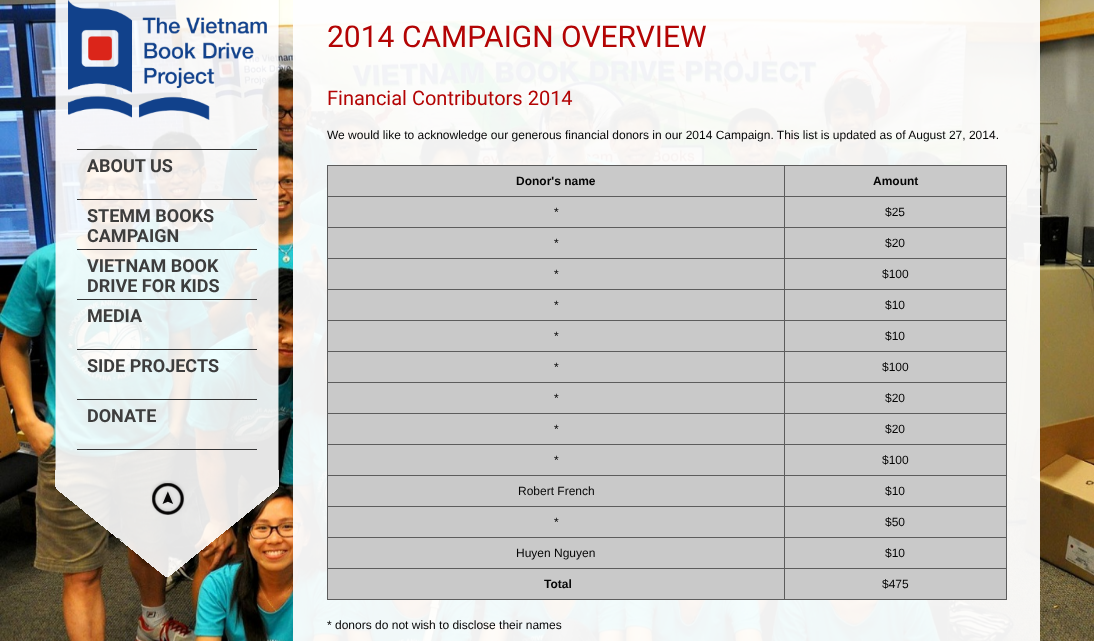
<svg xmlns="http://www.w3.org/2000/svg" width="1094" height="641">
	<rect width="100%" height="100%" fill="#FFFFFF" />
	<image x="0" y="0" width="1094" height="641" href="assets/img1.png" />
	<image x="54" y="0" width="226" height="470" href="assets/img2.png" />
	<image x="68" y="0" width="199" height="120" href="assets/img3.png" />
	<rect x="77" y="149" width="180" height="1" fill="#343434" />
	<rect x="77" y="199" width="180" height="1" fill="#343434" />
	<text x="87" y="172" font-family="Roboto" font-size="18" font-weight="700" fill="#3D3D3D">ABOUT US</text>
	<rect x="77" y="249" width="180" height="1" fill="#343434" />
	<g font-family="Roboto" font-size="18" font-weight="700" fill="#3D3D3D">
		<text x="87" y="222">STEMM BOOKS</text>
		<text x="87" y="242">CAMPAIGN</text>
	</g>
	<rect x="77" y="299" width="180" height="1" fill="#343434" />
	<g font-family="Roboto" font-size="18" font-weight="700" fill="#3D3D3D">
		<text x="87" y="272">VIETNAM BOOK</text>
		<text x="87" y="292">DRIVE FOR KIDS</text>
	</g>
	<rect x="77" y="349" width="180" height="1" fill="#343434" />
	<text x="87" y="322" font-family="Roboto" font-size="18" font-weight="700" fill="#3D3D3D">MEDIA</text>
	<rect x="77" y="399" width="180" height="1" fill="#343434" />
	<text x="87" y="372" font-family="Roboto" font-size="18" font-weight="700" fill="#3D3D3D">SIDE PROJECTS</text>
	<rect x="77" y="449" width="180" height="1" fill="#343434" />
	<text x="87" y="422" font-family="Roboto" font-size="18" font-weight="700" fill="#3D3D3D">DONATE</text>
	<image x="54" y="470" width="225" height="108" href="assets/img4.png" />
	<image x="150" y="480" width="35" height="35" href="assets/img5.png" />
	<rect x="293" y="0" width="747" height="641" fill="#FEFEFE" fill-opacity="0.95" />
	<text x="327" y="47" font-family="Roboto" font-size="30" fill="#B30404">2014 CAMPAIGN OVERVIEW</text>
	<text x="327" y="105" font-family="Roboto" font-size="20" fill="#B30404">Financial Contributors 2014</text>
	<text x="327" y="139" font-family="Liberation Sans" font-size="12" fill="#050505">We would like to acknowledge our generous financial donors in our 2014 Campaign. This list is updated as of August 27, 2014.</text>
	<rect x="327" y="165" width="680" height="1" fill="#5C5C5C" />
	<rect x="1006" y="165" width="1" height="435" fill="#5C5C5C" />
	<rect x="328" y="166" width="456" height="30" fill="#C9C9C9" />
	<rect x="784" y="599" width="223" height="1" fill="#5C5C5C" />
	<rect x="784" y="568" width="1" height="32" fill="#5C5C5C" />
	<rect x="784" y="568" width="223" height="1" fill="#5C5C5C" />
	<rect x="784" y="537" width="1" height="32" fill="#5C5C5C" />
	<rect x="784" y="537" width="223" height="1" fill="#5C5C5C" />
	<rect x="784" y="506" width="1" height="32" fill="#5C5C5C" />
	<rect x="784" y="506" width="223" height="1" fill="#5C5C5C" />
	<rect x="784" y="475" width="1" height="32" fill="#5C5C5C" />
	<rect x="784" y="475" width="223" height="1" fill="#5C5C5C" />
	<rect x="784" y="444" width="1" height="32" fill="#5C5C5C" />
	<rect x="784" y="444" width="223" height="1" fill="#5C5C5C" />
	<rect x="784" y="413" width="1" height="32" fill="#5C5C5C" />
	<rect x="784" y="413" width="223" height="1" fill="#5C5C5C" />
	<rect x="784" y="382" width="1" height="32" fill="#5C5C5C" />
	<rect x="784" y="382" width="223" height="1" fill="#5C5C5C" />
	<rect x="784" y="351" width="1" height="32" fill="#5C5C5C" />
	<rect x="784" y="351" width="223" height="1" fill="#5C5C5C" />
	<rect x="784" y="320" width="1" height="32" fill="#5C5C5C" />
	<rect x="784" y="320" width="223" height="1" fill="#5C5C5C" />
	<rect x="784" y="289" width="1" height="32" fill="#5C5C5C" />
	<rect x="784" y="289" width="223" height="1" fill="#5C5C5C" />
	<rect x="784" y="258" width="1" height="32" fill="#5C5C5C" />
	<rect x="784" y="258" width="223" height="1" fill="#5C5C5C" />
	<rect x="784" y="227" width="1" height="32" fill="#5C5C5C" />
	<rect x="784" y="227" width="223" height="1" fill="#5C5C5C" />
	<rect x="784" y="196" width="1" height="32" fill="#5C5C5C" />
	<rect x="784" y="196" width="223" height="1" fill="#5C5C5C" />
	<rect x="784" y="165" width="1" height="32" fill="#5C5C5C" />
	<rect x="327" y="599" width="458" height="1" fill="#5C5C5C" />
	<rect x="327" y="568" width="1" height="32" fill="#5C5C5C" />
	<rect x="327" y="568" width="458" height="1" fill="#5C5C5C" />
	<rect x="327" y="537" width="1" height="32" fill="#5C5C5C" />
	<rect x="327" y="537" width="458" height="1" fill="#5C5C5C" />
	<rect x="327" y="506" width="1" height="32" fill="#5C5C5C" />
	<rect x="327" y="506" width="458" height="1" fill="#5C5C5C" />
	<rect x="327" y="475" width="1" height="32" fill="#5C5C5C" />
	<rect x="327" y="475" width="458" height="1" fill="#5C5C5C" />
	<rect x="327" y="444" width="1" height="32" fill="#5C5C5C" />
	<rect x="327" y="444" width="458" height="1" fill="#5C5C5C" />
	<rect x="327" y="413" width="1" height="32" fill="#5C5C5C" />
	<rect x="327" y="413" width="458" height="1" fill="#5C5C5C" />
	<rect x="327" y="382" width="1" height="32" fill="#5C5C5C" />
	<rect x="327" y="382" width="458" height="1" fill="#5C5C5C" />
	<rect x="327" y="351" width="1" height="32" fill="#5C5C5C" />
	<rect x="327" y="351" width="458" height="1" fill="#5C5C5C" />
	<rect x="327" y="320" width="1" height="32" fill="#5C5C5C" />
	<rect x="327" y="320" width="458" height="1" fill="#5C5C5C" />
	<rect x="327" y="289" width="1" height="32" fill="#5C5C5C" />
	<rect x="327" y="289" width="458" height="1" fill="#5C5C5C" />
	<rect x="327" y="258" width="1" height="32" fill="#5C5C5C" />
	<rect x="327" y="258" width="458" height="1" fill="#5C5C5C" />
	<rect x="327" y="227" width="1" height="32" fill="#5C5C5C" />
	<rect x="327" y="227" width="458" height="1" fill="#5C5C5C" />
	<rect x="327" y="196" width="1" height="32" fill="#5C5C5C" />
	<rect x="327" y="196" width="458" height="1" fill="#5C5C5C" />
	<rect x="327" y="165" width="1" height="32" fill="#5C5C5C" />
	<text x="516" y="185" font-family="Liberation Sans" font-size="12" font-weight="700" fill="#050505">Donor's name</text>
	<rect x="785" y="166" width="221" height="30" fill="#C9C9C9" />
	<text x="873" y="185" font-family="Liberation Sans" font-size="12" font-weight="700" fill="#050505">Amount</text>
	<rect x="328" y="197" width="456" height="30" fill="#C9C9C9" />
	<text x="554" y="216" font-family="Liberation Sans" font-size="12" fill="#050505">*</text>
	<rect x="785" y="197" width="221" height="30" fill="#C9C9C9" />
	<text x="885" y="216" font-family="Liberation Sans" font-size="12" fill="#050505">$25</text>
	<rect x="328" y="228" width="456" height="30" fill="#C9C9C9" />
	<text x="554" y="247" font-family="Liberation Sans" font-size="12" fill="#050505">*</text>
	<rect x="785" y="228" width="221" height="30" fill="#C9C9C9" />
	<text x="885" y="247" font-family="Liberation Sans" font-size="12" fill="#050505">$20</text>
	<rect x="328" y="259" width="456" height="30" fill="#C9C9C9" />
	<text x="554" y="278" font-family="Liberation Sans" font-size="12" fill="#050505">*</text>
	<rect x="785" y="259" width="221" height="30" fill="#C9C9C9" />
	<text x="882" y="278" font-family="Liberation Sans" font-size="12" fill="#050505">$100</text>
	<rect x="328" y="290" width="456" height="30" fill="#C9C9C9" />
	<text x="554" y="309" font-family="Liberation Sans" font-size="12" fill="#050505">*</text>
	<rect x="785" y="290" width="221" height="30" fill="#C9C9C9" />
	<text x="885" y="309" font-family="Liberation Sans" font-size="12" fill="#050505">$10</text>
	<rect x="328" y="321" width="456" height="30" fill="#C9C9C9" />
	<text x="554" y="340" font-family="Liberation Sans" font-size="12" fill="#050505">*</text>
	<rect x="785" y="321" width="221" height="30" fill="#C9C9C9" />
	<text x="885" y="340" font-family="Liberation Sans" font-size="12" fill="#050505">$10</text>
	<rect x="328" y="352" width="456" height="30" fill="#C9C9C9" />
	<text x="554" y="371" font-family="Liberation Sans" font-size="12" fill="#050505">*</text>
	<rect x="785" y="352" width="221" height="30" fill="#C9C9C9" />
	<text x="882" y="371" font-family="Liberation Sans" font-size="12" fill="#050505">$100</text>
	<rect x="328" y="383" width="456" height="30" fill="#C9C9C9" />
	<text x="554" y="402" font-family="Liberation Sans" font-size="12" fill="#050505">*</text>
	<rect x="785" y="383" width="221" height="30" fill="#C9C9C9" />
	<text x="885" y="402" font-family="Liberation Sans" font-size="12" fill="#050505">$20</text>
	<rect x="328" y="414" width="456" height="30" fill="#C9C9C9" />
	<text x="554" y="433" font-family="Liberation Sans" font-size="12" fill="#050505">*</text>
	<rect x="785" y="414" width="221" height="30" fill="#C9C9C9" />
	<text x="885" y="433" font-family="Liberation Sans" font-size="12" fill="#050505">$20</text>
	<rect x="328" y="445" width="456" height="30" fill="#C9C9C9" />
	<text x="554" y="464" font-family="Liberation Sans" font-size="12" fill="#050505">*</text>
	<rect x="785" y="445" width="221" height="30" fill="#C9C9C9" />
	<text x="882" y="464" font-family="Liberation Sans" font-size="12" fill="#050505">$100</text>
	<rect x="328" y="476" width="456" height="30" fill="#C9C9C9" />
	<text x="518" y="495" font-family="Liberation Sans" font-size="12" fill="#050505">Robert French</text>
	<rect x="785" y="476" width="221" height="30" fill="#C9C9C9" />
	<text x="885" y="495" font-family="Liberation Sans" font-size="12" fill="#050505">$10</text>
	<rect x="328" y="507" width="456" height="30" fill="#C9C9C9" />
	<text x="554" y="526" font-family="Liberation Sans" font-size="12" fill="#050505">*</text>
	<rect x="785" y="507" width="221" height="30" fill="#C9C9C9" />
	<text x="885" y="526" font-family="Liberation Sans" font-size="12" fill="#050505">$50</text>
	<rect x="328" y="538" width="456" height="30" fill="#C9C9C9" />
	<text x="516" y="557" font-family="Liberation Sans" font-size="12" fill="#050505">Huyen Nguyen</text>
	<rect x="785" y="538" width="221" height="30" fill="#C9C9C9" />
	<text x="885" y="557" font-family="Liberation Sans" font-size="12" fill="#050505">$10</text>
	<rect x="328" y="569" width="456" height="30" fill="#C9C9C9" />
	<text x="544" y="588" font-family="Liberation Sans" font-size="12" font-weight="700" fill="#050505">Total</text>
	<rect x="785" y="569" width="221" height="30" fill="#C9C9C9" />
	<g font-family="Liberation Sans" font-size="12" fill="#050505">
		<text x="882" y="588">$475</text>
		<text x="327" y="629">* donors do not wish to disclose their names</text>
	</g>
</svg>
